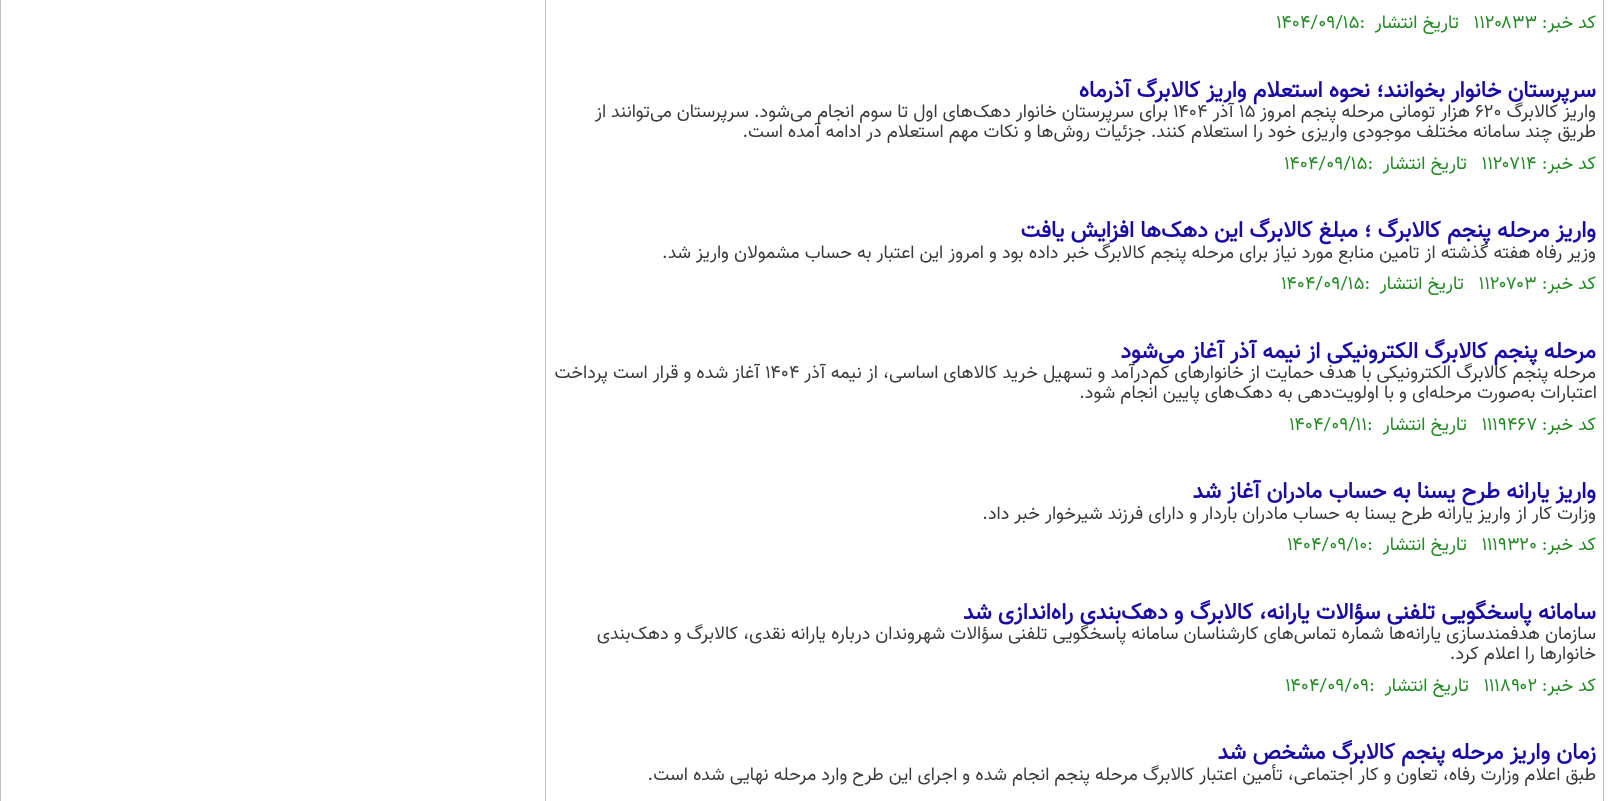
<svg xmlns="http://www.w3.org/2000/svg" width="1609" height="801">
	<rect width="100%" height="100%" fill="#FFFFFF" />
	<rect x="0" y="0" width="1" height="801" fill="#C0C0C0" />
	<rect x="545.5" y="-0.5" width="1058" height="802" fill="none" stroke="#C0C0C0" />
	<text x="1596" y="28" font-family="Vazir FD" font-size="18.33" direction="rtl" fill="#228822">کد خبر:</text>
	<text x="1474" y="28" font-family="Vazir FD" font-size="18.33" fill="#228822">۱۱۲۰۸۳۳</text>
	<text x="1459" y="28" font-family="Vazir FD" font-size="18.33" direction="rtl" fill="#228822">تاریخ انتشار</text>
	<text x="1276" y="28" font-family="Vazir FD" font-size="18.33" fill="#228822">۱۴۰۴/۰۹/۱۵:</text>
	<text x="1596" y="97" font-family="Vazir FD" font-size="22.5" font-weight="700" direction="rtl" fill="#1809A6">سرپرستان خانوار بخوانند؛ نحوه استعلام واریز کالابرگ آذرماه</text>
	<text x="1596" y="117" font-family="Vazir FD" font-size="18.33" direction="rtl" fill="#3A3A3D">واریز کالابرگ</text>
	<text x="1475" y="117" font-family="Vazir FD" font-size="18.33" fill="#3A3A3D">۶۲۰</text>
	<text x="1470" y="117" font-family="Vazir FD" font-size="18.33" direction="rtl" fill="#3A3A3D">هزار تومانی مرحله پنجم امروز</text>
	<text x="1239" y="117" font-family="Vazir FD" font-size="18.33" fill="#3A3A3D">۱۵</text>
	<text x="1234" y="117" font-family="Vazir FD" font-size="18.33" direction="rtl" fill="#3A3A3D">آذر</text>
	<text x="1173" y="117" font-family="Vazir FD" font-size="18.33" fill="#3A3A3D">۱۴۰۴</text>
	<g font-family="Vazir FD" font-size="18.33" direction="rtl" fill="#3A3A3D">
		<text x="1168" y="117">برای سرپرستان خانوار دهک‌های اول تا سوم انجام می‌شود. سرپرستان می‌توانند از</text>
		<text x="1596" y="137">طریق چند سامانه مختلف موجودی واریزی خود را استعلام کنند. جزئیات روش‌ها و نکات مهم استعلام در ادامه آمده است.</text>
	</g>
	<text x="1596" y="169" font-family="Vazir FD" font-size="18.33" direction="rtl" fill="#228822">کد خبر:</text>
	<text x="1482" y="169" font-family="Vazir FD" font-size="18.33" fill="#228822">۱۱۲۰۷۱۴</text>
	<text x="1467" y="169" font-family="Vazir FD" font-size="18.33" direction="rtl" fill="#228822">تاریخ انتشار</text>
	<text x="1284" y="169" font-family="Vazir FD" font-size="18.33" fill="#228822">۱۴۰۴/۰۹/۱۵:</text>
	<text x="1596" y="237" font-family="Vazir FD" font-size="22.5" font-weight="700" direction="rtl" fill="#1809A6">واریز مرحله پنجم کالابرگ ؛ مبلغ کالابرگ این دهک‌ها افزایش یافت</text>
	<text x="1596" y="258" font-family="Vazir FD" font-size="18.33" direction="rtl" fill="#3A3A3D">وزیر رفاه هفته گذشته از تامین منابع مورد نیاز برای مرحله پنجم کالابرگ خبر داده بود و امروز این اعتبار به حساب مشمولان واریز شد.</text>
	<text x="1596" y="289" font-family="Vazir FD" font-size="18.33" direction="rtl" fill="#228822">کد خبر:</text>
	<text x="1479" y="289" font-family="Vazir FD" font-size="18.33" fill="#228822">۱۱۲۰۷۰۳</text>
	<text x="1464" y="289" font-family="Vazir FD" font-size="18.33" direction="rtl" fill="#228822">تاریخ انتشار</text>
	<text x="1281" y="289" font-family="Vazir FD" font-size="18.33" fill="#228822">۱۴۰۴/۰۹/۱۵:</text>
	<text x="1596" y="358" font-family="Vazir FD" font-size="22.5" font-weight="700" direction="rtl" fill="#1809A6">مرحله پنجم کالابرگ الکترونیکی از نیمه آذر آغاز می‌شود</text>
	<text x="1596" y="378" font-family="Vazir FD" font-size="18.33" direction="rtl" fill="#3A3A3D">مرحله پنجم کالابرگ الکترونیکی با هدف حمایت از خانوارهای کم‌درآمد و تسهیل خرید کالاهای اساسی، از نیمه آذر</text>
	<text x="765" y="378" font-family="Vazir FD" font-size="18.33" fill="#3A3A3D">۱۴۰۴</text>
	<g font-family="Vazir FD" font-size="18.33" direction="rtl" fill="#3A3A3D">
		<text x="760" y="378">آغاز شده و قرار است پرداخت</text>
		<text x="1597" y="398">اعتبارات به‌صورت مرحله‌ای و با اولویت‌دهی به دهک‌های پایین انجام شود.</text>
	</g>
	<text x="1596" y="430" font-family="Vazir FD" font-size="18.33" direction="rtl" fill="#228822">کد خبر:</text>
	<text x="1482" y="430" font-family="Vazir FD" font-size="18.33" fill="#228822">۱۱۱۹۴۶۷</text>
	<text x="1467" y="430" font-family="Vazir FD" font-size="18.33" direction="rtl" fill="#228822">تاریخ انتشار</text>
	<text x="1289" y="430" font-family="Vazir FD" font-size="18.33" fill="#228822">۱۴۰۴/۰۹/۱۱:</text>
	<text x="1596" y="498" font-family="Vazir FD" font-size="22.5" font-weight="700" direction="rtl" fill="#1809A6">واریز یارانه طرح یسنا به حساب مادران آغاز شد</text>
	<text x="1596" y="519" font-family="Vazir FD" font-size="18.33" direction="rtl" fill="#3A3A3D">وزارت کار از واریز یارانه طرح یسنا به حساب مادران باردار و دارای فرزند شیرخوار خبر داد.</text>
	<text x="1596" y="550" font-family="Vazir FD" font-size="18.33" direction="rtl" fill="#228822">کد خبر:</text>
	<text x="1482" y="550" font-family="Vazir FD" font-size="18.33" fill="#228822">۱۱۱۹۳۲۰</text>
	<text x="1467" y="550" font-family="Vazir FD" font-size="18.33" direction="rtl" fill="#228822">تاریخ انتشار</text>
	<text x="1287" y="550" font-family="Vazir FD" font-size="18.33" fill="#228822">۱۴۰۴/۰۹/۱۰:</text>
	<text x="1596" y="619" font-family="Vazir FD" font-size="22.5" font-weight="700" direction="rtl" fill="#1809A6">سامانه پاسخگویی تلفنی سؤالات یارانه، کالابرگ و دهک‌بندی راه‌اندازی شد</text>
	<g font-family="Vazir FD" font-size="18.33" direction="rtl" fill="#3A3A3D">
		<text x="1596" y="639">سازمان هدفمندسازی یارانه‌ها شماره تماس‌های کارشناسان سامانه پاسخگویی تلفنی سؤالات شهروندان درباره یارانه نقدی، کالابرگ و دهک‌بندی</text>
		<text x="1596" y="659">خانوارها را اعلام کرد.</text>
	</g>
	<text x="1596" y="691" font-family="Vazir FD" font-size="18.33" direction="rtl" fill="#228822">کد خبر:</text>
	<text x="1484" y="691" font-family="Vazir FD" font-size="18.33" fill="#228822">۱۱۱۸۹۰۲</text>
	<text x="1469" y="691" font-family="Vazir FD" font-size="18.33" direction="rtl" fill="#228822">تاریخ انتشار</text>
	<text x="1285" y="691" font-family="Vazir FD" font-size="18.33" fill="#228822">۱۴۰۴/۰۹/۰۹:</text>
	<text x="1596" y="759" font-family="Vazir FD" font-size="22.5" font-weight="700" direction="rtl" fill="#1809A6">زمان واریز مرحله پنجم کالابرگ مشخص شد</text>
	<text x="1596" y="780" font-family="Vazir FD" font-size="18.33" direction="rtl" fill="#3A3A3D">طبق اعلام وزارت رفاه، تعاون و کار اجتماعی، تأمین اعتبار کالابرگ مرحله پنجم انجام شده و اجرای این طرح وارد مرحله نهایی شده است.</text>
</svg>
